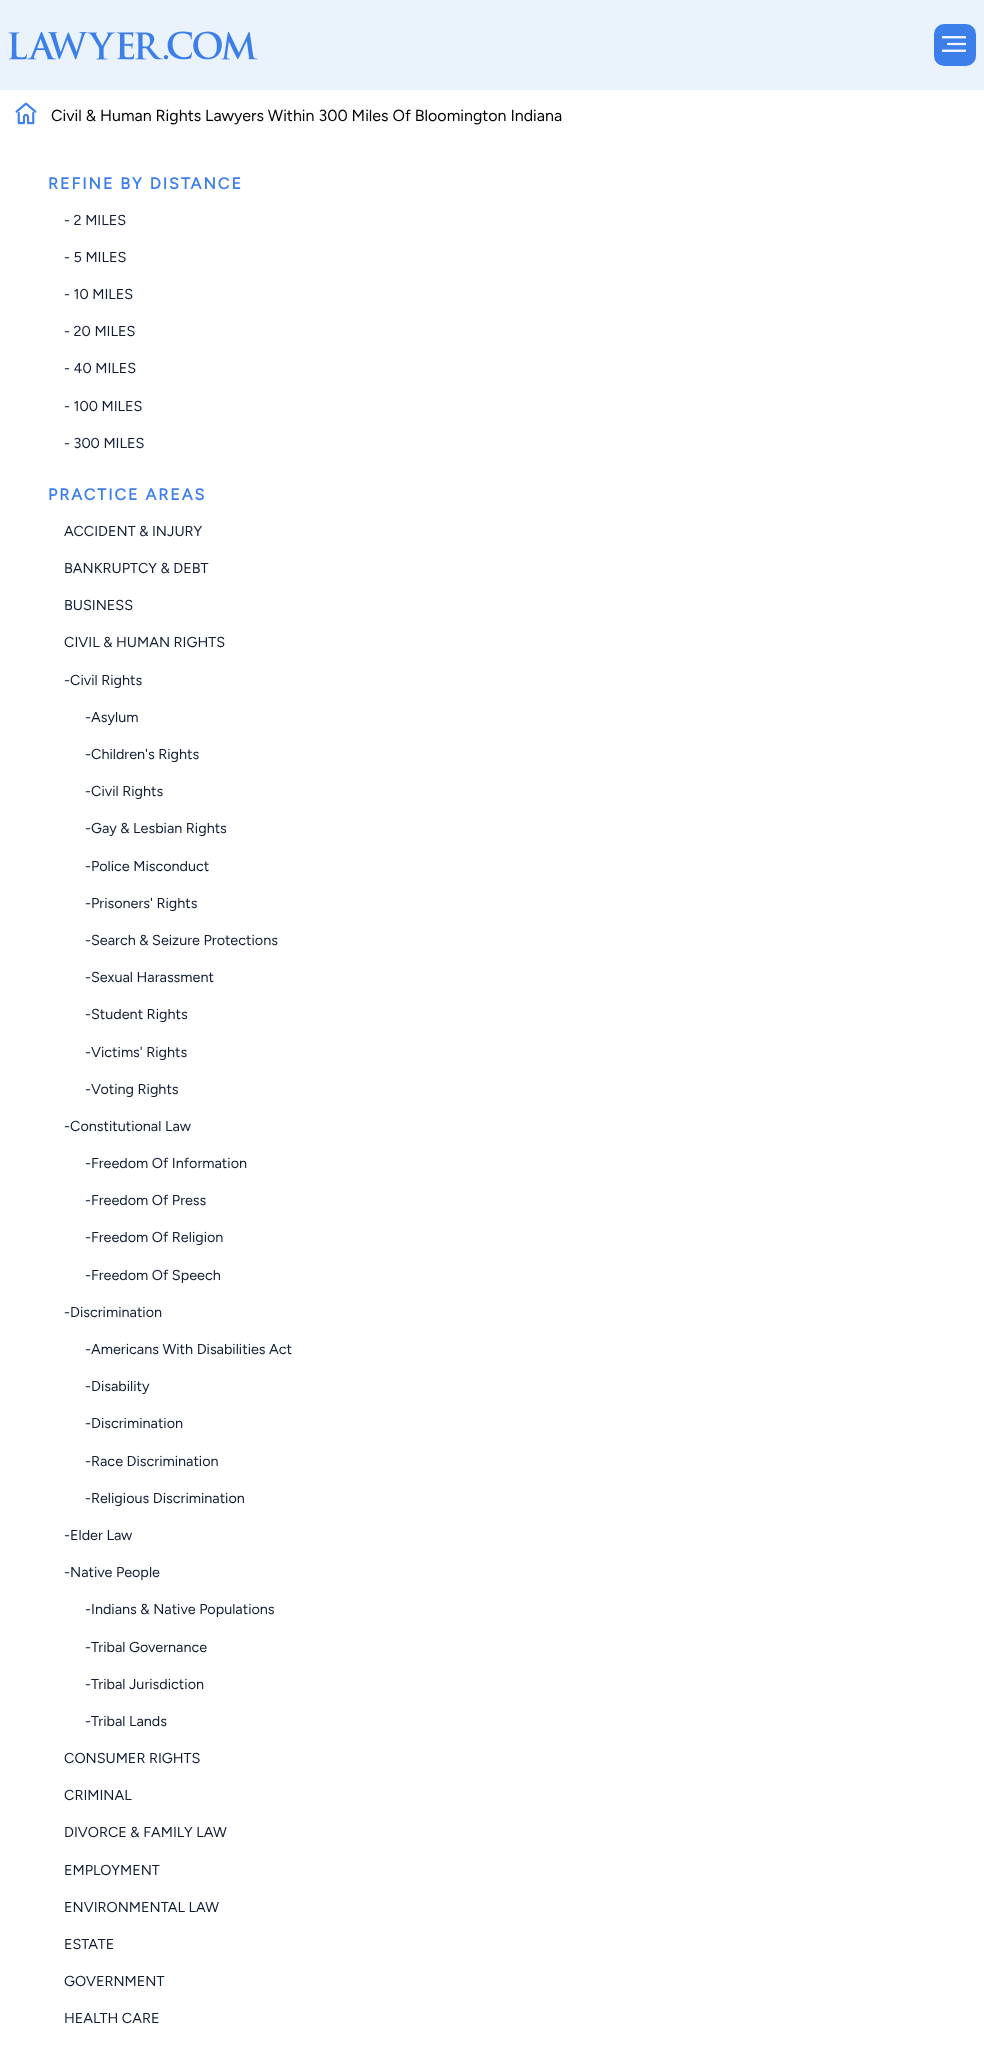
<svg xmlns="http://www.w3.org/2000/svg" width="984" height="2056">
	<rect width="100%" height="100%" fill="#FFFFFF" />
	<rect x="0" y="0" width="984" height="90" fill="#EAF2FB" />
	<image x="8" y="31" width="250" height="29" href="assets/img1.png" />
	<rect x="934" y="24" width="42" height="42" rx="10" fill="#3C7FEB" />
	<image x="942" y="36" width="24" height="16" href="assets/img2.png" />
	<image x="15" y="102" width="22" height="23" href="assets/img3.png" />
	<text x="51" y="121" font-family="Figtree" font-size="16" fill="#000000">Civil &amp; Human Rights Lawyers Within 300 Miles Of Bloomington Indiana</text>
	<text x="48" y="189" font-family="Figtree" font-size="16" font-weight="700" letter-spacing="2" fill="#3C7FEB">REFINE BY DISTANCE</text>
	<g font-family="Figtree" font-size="14.4" fill="#101D32">
		<text x="64" y="225">- 2 MILES</text>
		<text x="64" y="262">- 5 MILES</text>
		<text x="64" y="299">- 10 MILES</text>
		<text x="64" y="336">- 20 MILES</text>
		<text x="64" y="373">- 40 MILES</text>
		<text x="64" y="411">- 100 MILES</text>
		<text x="64" y="448">- 300 MILES</text>
	</g>
	<text x="48" y="500" font-family="Figtree" font-size="16" font-weight="700" letter-spacing="2" fill="#3C7FEB">PRACTICE AREAS</text>
	<g font-family="Figtree" font-size="14.4" fill="#101D32">
		<text x="64" y="536">ACCIDENT &amp; INJURY</text>
		<text x="64" y="573">BANKRUPTCY &amp; DEBT</text>
		<text x="64" y="610">BUSINESS</text>
		<text x="64" y="647">CIVIL &amp; HUMAN RIGHTS</text>
		<text x="64" y="685">-Civil Rights</text>
		<text x="85" y="722">-Asylum</text>
		<text x="85" y="759">-Children's Rights</text>
		<text x="85" y="796">-Civil Rights</text>
		<text x="85" y="833">-Gay &amp; Lesbian Rights</text>
		<text x="85" y="871">-Police Misconduct</text>
		<text x="85" y="908">-Prisoners' Rights</text>
		<text x="85" y="945">-Search &amp; Seizure Protections</text>
		<text x="85" y="982">-Sexual Harassment</text>
		<text x="85" y="1019">-Student Rights</text>
		<text x="85" y="1057">-Victims' Rights</text>
		<text x="85" y="1094">-Voting Rights</text>
		<text x="64" y="1131">-Constitutional Law</text>
		<text x="85" y="1168">-Freedom Of Information</text>
		<text x="85" y="1205">-Freedom Of Press</text>
		<text x="85" y="1242">-Freedom Of Religion</text>
		<text x="85" y="1280">-Freedom Of Speech</text>
		<text x="64" y="1317">-Discrimination</text>
		<text x="85" y="1354">-Americans With Disabilities Act</text>
		<text x="85" y="1391">-Disability</text>
		<text x="85" y="1428">-Discrimination</text>
		<text x="85" y="1466">-Race Discrimination</text>
		<text x="85" y="1503">-Religious Discrimination</text>
		<text x="64" y="1540">-Elder Law</text>
		<text x="64" y="1577">-Native People</text>
		<text x="85" y="1614">-Indians &amp; Native Populations</text>
		<text x="85" y="1652">-Tribal Governance</text>
		<text x="85" y="1689">-Tribal Jurisdiction</text>
		<text x="85" y="1726">-Tribal Lands</text>
		<text x="64" y="1763">CONSUMER RIGHTS</text>
		<text x="64" y="1800">CRIMINAL</text>
		<text x="64" y="1837">DIVORCE &amp; FAMILY LAW</text>
		<text x="64" y="1875">EMPLOYMENT</text>
		<text x="64" y="1912">ENVIRONMENTAL LAW</text>
		<text x="64" y="1949">ESTATE</text>
		<text x="64" y="1986">GOVERNMENT</text>
		<text x="64" y="2023">HEALTH CARE</text>
	</g>
</svg>
